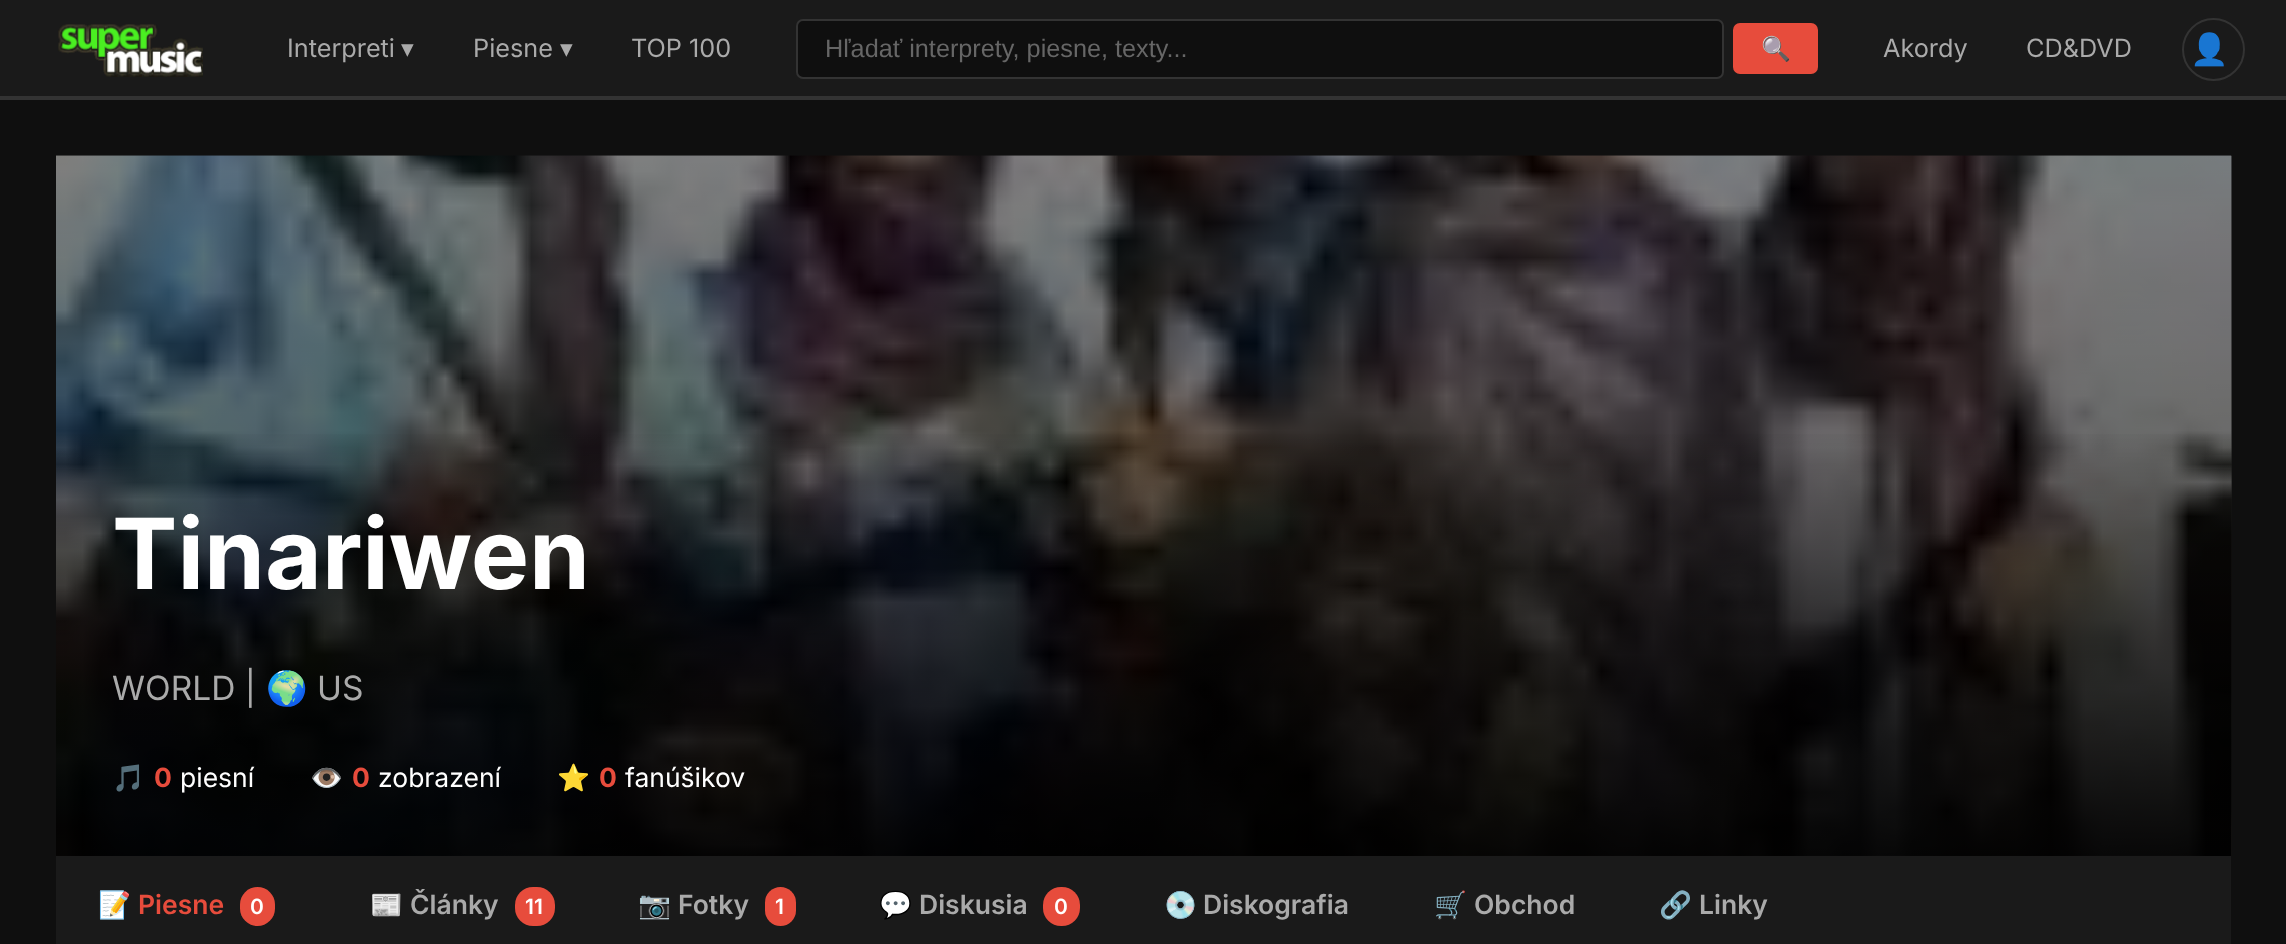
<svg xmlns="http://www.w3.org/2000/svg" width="2286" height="944">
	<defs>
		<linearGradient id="g1" gradientUnits="userSpaceOnUse" x1="1144" y1="422" x2="1144" y2="856"><stop offset="0" stop-color="#000000" stop-opacity="0" /><stop offset="1" stop-color="#000000" stop-opacity="0.9" /></linearGradient>
	</defs>
	<rect width="100%" height="100%" fill="#0F0F0F" />
	<rect x="0" y="0" width="2286" height="96" fill="#1A1A1A" />
	<rect x="0" y="96" width="2286" height="4" fill="#333333" />
	<image x="58" y="24" width="145" height="53" href="assets/img1.png" />
	<text x="287" y="57" font-family="Inter" font-size="25.25" fill="#AAAAAA">Interpreti</text>
	<text x="401" y="57" font-family="DejaVu Sans" font-size="25.25" fill="#AAAAAA">▾</text>
	<text x="473" y="57" font-family="Inter" font-size="25.25" fill="#AAAAAA">Piesne</text>
	<text x="560" y="57" font-family="DejaVu Sans" font-size="25.25" fill="#AAAAAA">▾</text>
	<text x="631" y="57" font-family="Inter" font-size="25.25" fill="#AAAAAA">TOP 100</text>
	<rect x="797" y="20" width="926" height="58" rx="6" fill="#0F0F0F" stroke="#333333" stroke-width="2" />
	<text x="825" y="57" font-family="Liberation Sans" font-size="25.25" fill="#666666">Hľadať interprety, piesne, texty...</text>
	<rect x="1733" y="23" width="85" height="51" rx="7" fill="#E74C3C" />
	<text x="1761" y="57" font-family="Noto Color Emoji" font-size="24" font-weight="700" fill="#FFFFFF">🔍</text>
	<g font-family="Inter" font-size="25.25" fill="#AAAAAA">
		<text x="1883" y="57">Akordy</text>
		<text x="2026" y="57">CD&amp;DVD</text>
	</g>
	<circle cx="2213.5" cy="49.5" r="30.5" fill="none" stroke="#333333" stroke-width="2" />
	<text x="2190" y="60" font-family="Noto Color Emoji" font-size="31" fill="#AAAAAA">👤</text>
	<image x="56" y="155" width="2176" height="701" href="assets/img2.png" />
	<rect x="56" y="434" width="2175" height="422" fill="url(#g1)" />
	<text x="112" y="589" font-family="Inter" font-size="98" font-weight="700" fill="#FFFFFF">Tinariwen</text>
	<text x="112" y="700" font-family="Inter" font-size="33.5" fill="#AAAAAA">WORLD |</text>
	<text x="266" y="700" font-family="Noto Color Emoji" font-size="33.5" fill="#AAAAAA">🌍</text>
	<text x="317" y="700" font-family="Inter" font-size="33.5" fill="#AAAAAA">US</text>
	<text x="112" y="787" font-family="Noto Color Emoji" font-size="26.5" fill="#FFFFFF">🎵</text>
	<text x="154" y="787" font-family="Inter" font-size="26.5" font-weight="700" fill="#E74C3C">0</text>
	<text x="180" y="787" font-family="Inter" font-size="26.5" fill="#FFFFFF">piesní</text>
	<text x="310" y="787" font-family="Noto Color Emoji" font-size="26.5" fill="#FFFFFF">👁️</text>
	<text x="352" y="787" font-family="Inter" font-size="26.5" font-weight="700" fill="#E74C3C">0</text>
	<text x="378" y="787" font-family="Inter" font-size="26.5" fill="#FFFFFF">zobrazení</text>
	<text x="557" y="787" font-family="Noto Color Emoji" font-size="26.5" fill="#FFFFFF">⭐</text>
	<text x="599" y="787" font-family="Inter" font-size="26.5" font-weight="700" fill="#E74C3C">0</text>
	<text x="625" y="787" font-family="Inter" font-size="26.5" fill="#FFFFFF">fanúšikov</text>
	<rect x="56" y="856" width="2175" height="88" fill="#1A1A1A" />
	<text x="98" y="914" font-family="Noto Color Emoji" font-size="26.5" font-weight="700" fill="#E74C3C">📝</text>
	<text x="138" y="914" font-family="Inter" font-size="26.5" font-weight="600" fill="#E74C3C">Piesne</text>
	<rect x="240" y="887" width="35" height="39" rx="17.5" fill="#E74C3C" />
	<text x="250" y="914" font-family="Inter" font-size="21" font-weight="600" fill="#FFFFFF">0</text>
	<text x="370" y="914" font-family="Noto Color Emoji" font-size="26.5" font-weight="700" fill="#AAAAAA">📰</text>
	<text x="410" y="914" font-family="Inter" font-size="26.5" font-weight="600" fill="#AAAAAA">Články</text>
	<rect x="515" y="887" width="40" height="39" rx="18" fill="#E74C3C" />
	<text x="525" y="914" font-family="Inter" font-size="21" font-weight="600" fill="#FFFFFF">11</text>
	<text x="638" y="914" font-family="Noto Color Emoji" font-size="26.5" font-weight="700" fill="#AAAAAA">📷</text>
	<text x="678" y="914" font-family="Inter" font-size="26.5" font-weight="600" fill="#AAAAAA">Fotky</text>
	<rect x="765" y="887" width="31" height="39" rx="15.5" fill="#E74C3C" />
	<text x="775" y="914" font-family="Inter" font-size="21" font-weight="600" fill="#FFFFFF">1</text>
	<text x="879" y="914" font-family="Noto Color Emoji" font-size="26.5" font-weight="700" fill="#AAAAAA">💬</text>
	<text x="919" y="914" font-family="Inter" font-size="26.5" font-weight="600" fill="#AAAAAA">Diskusia</text>
	<rect x="1043" y="887" width="37" height="39" rx="18" fill="#E74C3C" />
	<text x="1054" y="914" font-family="Inter" font-size="21" font-weight="600" fill="#FFFFFF">0</text>
	<text x="1164" y="914" font-family="Noto Color Emoji" font-size="26.5" font-weight="700" fill="#AAAAAA">💿</text>
	<text x="1203" y="914" font-family="Inter" font-size="26.5" font-weight="600" fill="#AAAAAA">Diskografia</text>
	<text x="1434" y="914" font-family="Noto Color Emoji" font-size="26.5" font-weight="700" fill="#AAAAAA">🛒</text>
	<text x="1474" y="914" font-family="Inter" font-size="26.5" font-weight="600" fill="#AAAAAA">Obchod</text>
	<text x="1659" y="914" font-family="Noto Color Emoji" font-size="26.5" font-weight="700" fill="#AAAAAA">🔗</text>
	<text x="1699" y="914" font-family="Inter" font-size="26.5" font-weight="600" fill="#AAAAAA">Linky</text>
</svg>
